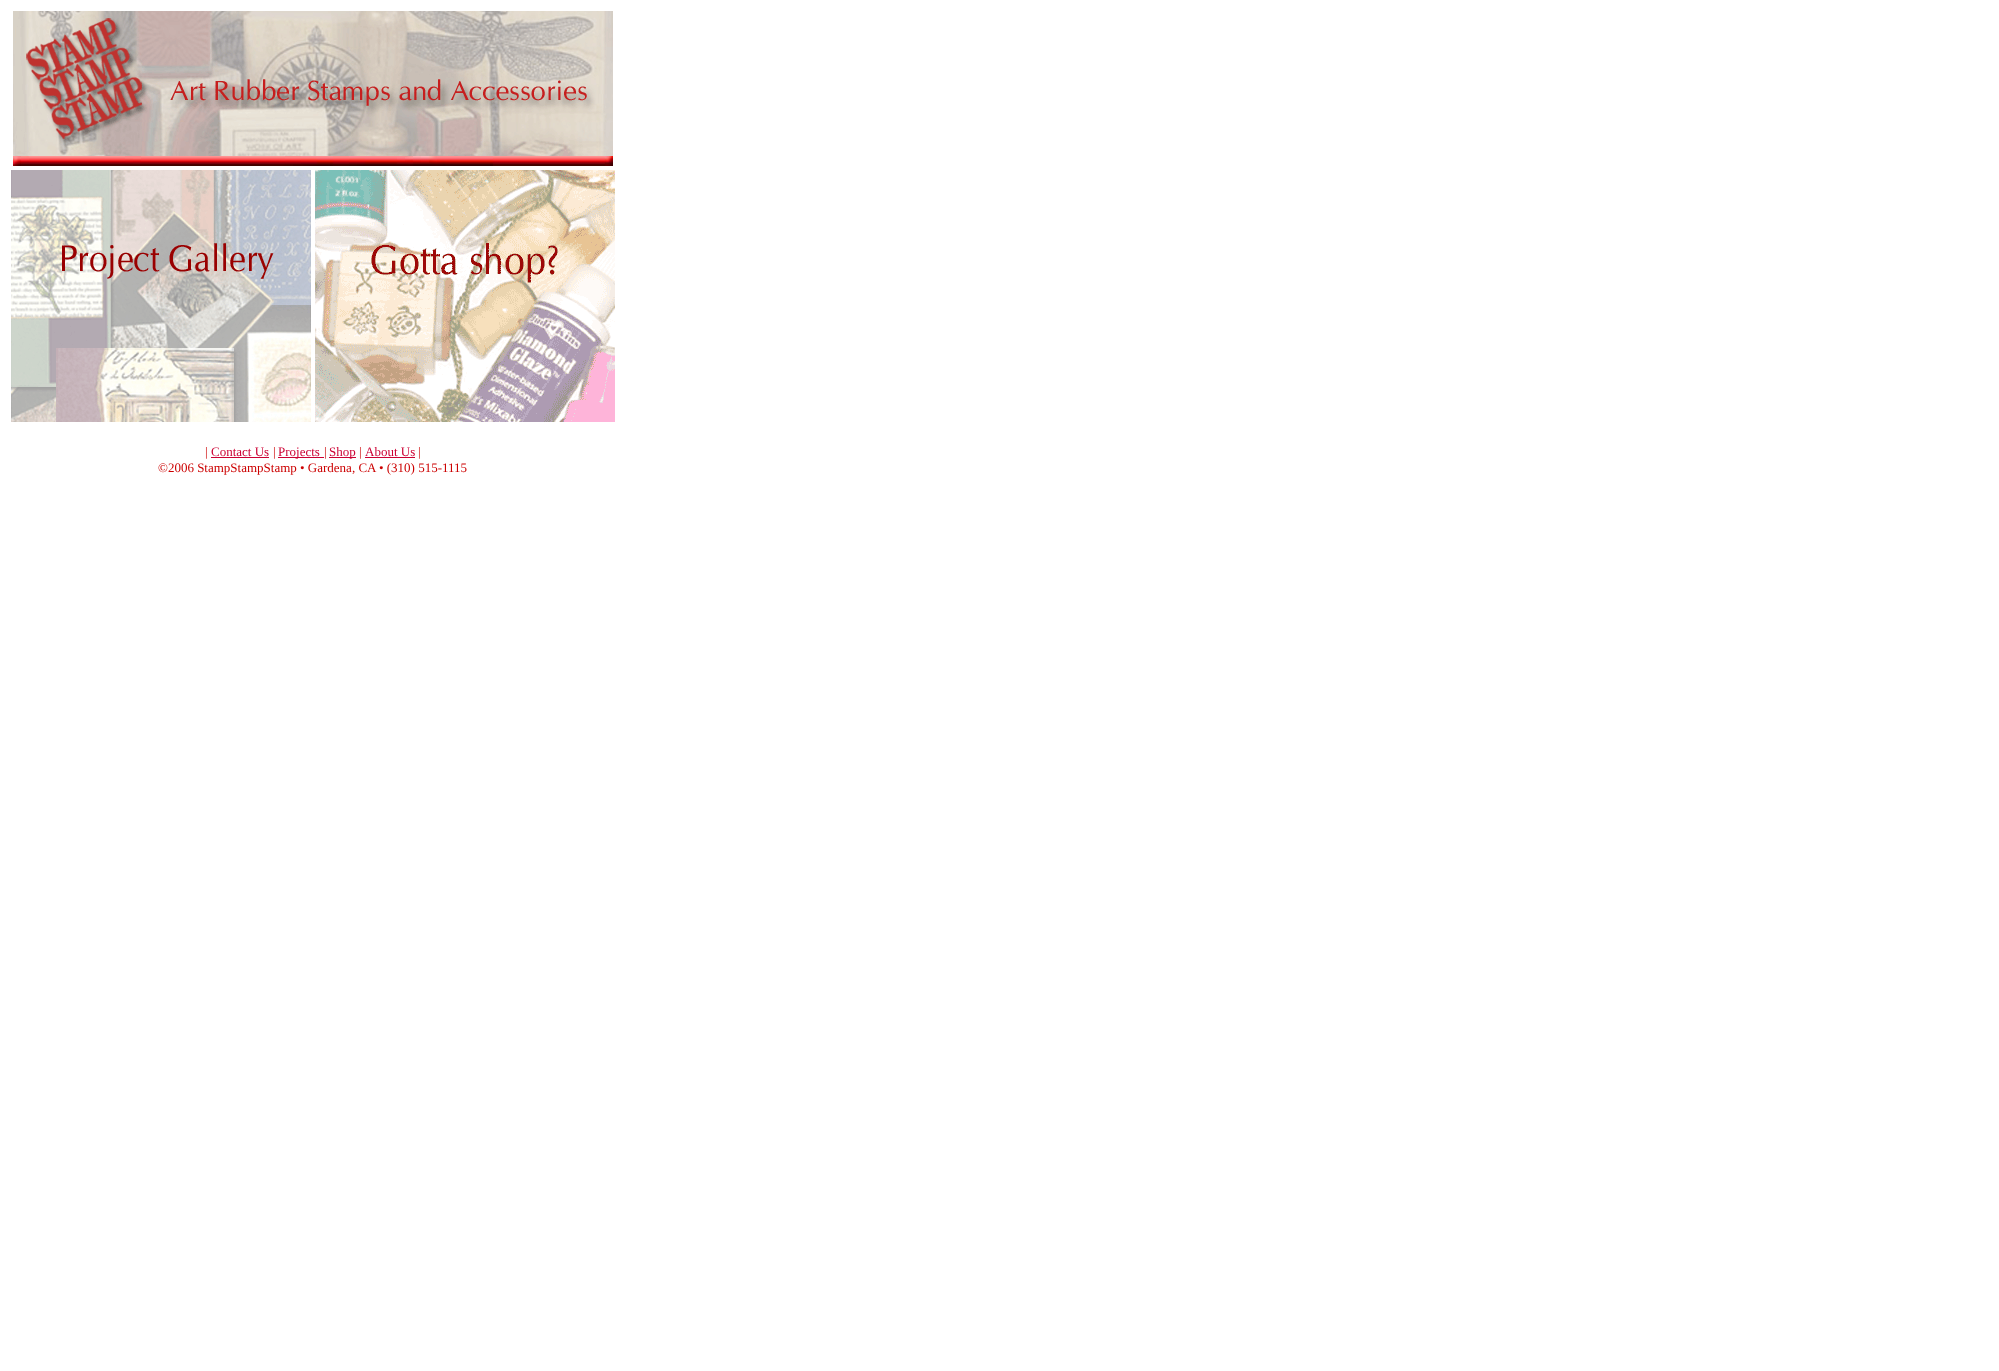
<svg xmlns="http://www.w3.org/2000/svg" width="1999" height="1371">
	<rect width="100%" height="100%" fill="#FFFFFF" />
	<image x="13" y="11" width="600" height="145" href="assets/img1.png" />
	<image x="13" y="156" width="600" height="10" href="assets/img2.png" />
	<image x="11" y="170" width="300" height="252" href="assets/img3.png" />
	<image x="315" y="170" width="300" height="252" href="assets/img4.png" />
	<text x="205" y="456" font-family="Liberation Serif" font-size="13" fill="#CC0000">|</text>
	<text x="211" y="456" font-family="Liberation Serif" font-size="13" fill="#CC0033">Contact Us</text>
	<rect x="211" y="457" width="58" height="1" fill="#CC0033" />
	<text x="273" y="456" font-family="Liberation Serif" font-size="13" fill="#CC0000">|</text>
	<rect x="278" y="457" width="46" height="1" fill="#CC0033" />
	<text x="278" y="456" font-family="Liberation Serif" font-size="13" fill="#CC0033">Projects</text>
	<text x="324" y="456" font-family="Liberation Serif" font-size="13" fill="#CC0000">|</text>
	<rect x="329" y="457" width="27" height="1" fill="#CC0033" />
	<text x="329" y="456" font-family="Liberation Serif" font-size="13" fill="#CC0033">Shop</text>
	<text x="359" y="456" font-family="Liberation Serif" font-size="13" fill="#CC0000">|</text>
	<text x="365" y="456" font-family="Liberation Serif" font-size="13" fill="#CC0033">About Us</text>
	<rect x="365" y="457" width="50" height="1" fill="#CC0033" />
	<g font-family="Liberation Serif" font-size="13" fill="#CC0000">
		<text x="418" y="456">|</text>
		<text x="158" y="472">©2006 StampStampStamp • Gardena, CA • (310) 515-1115</text>
	</g>
</svg>
